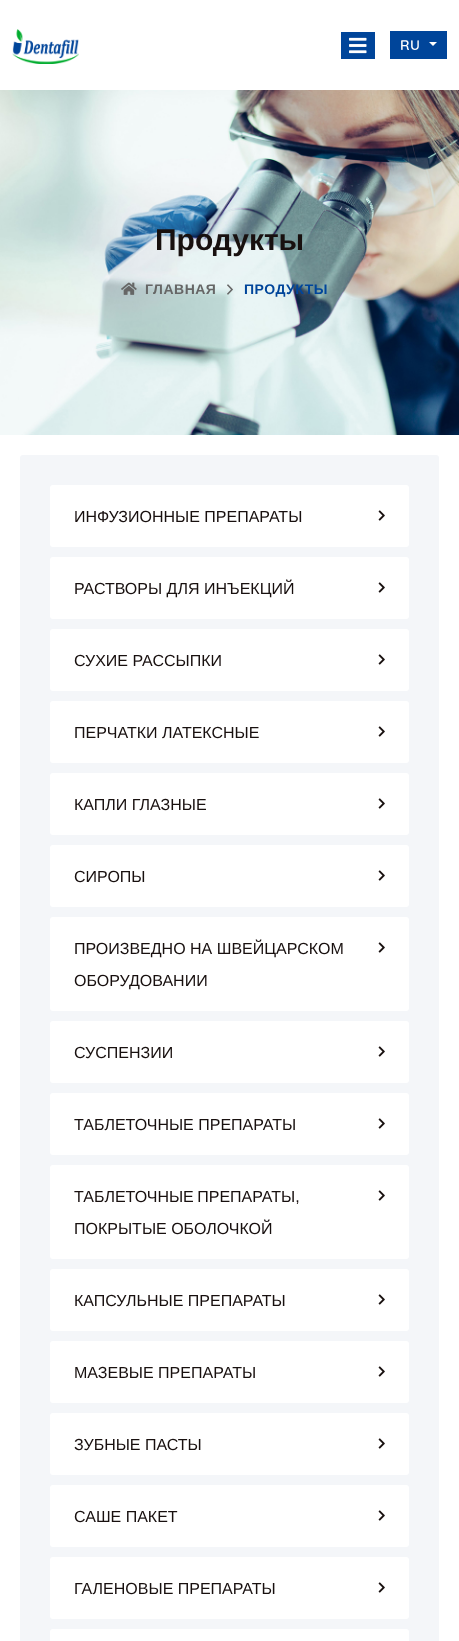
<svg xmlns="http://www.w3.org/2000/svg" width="459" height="1641">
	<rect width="100%" height="100%" fill="#FFFFFF" />
	<image x="12" y="29" width="67" height="35" href="assets/img1.png" />
	<rect x="341" y="32" width="34" height="27" fill="#00459A" />
	<image x="349" y="37" width="18" height="17" href="assets/img2.png" />
	<rect x="390" y="31" width="57" height="28" fill="#00459A" />
	<text x="400" y="50" font-family="Quicksand" font-size="14" font-weight="600" letter-spacing="0.5" fill="#FFFFFF">RU</text>
	<path d="M429 42H437L433 46Z" fill="#FFFFFF" />
	<image x="0" y="90" width="459" height="345" href="assets/img3.png" />
	<text x="155" y="250" font-family="Liberation Sans" font-size="30" font-weight="700" fill="#18100F">Продукты</text>
	<image x="121" y="282" width="16" height="13" href="assets/img4.png" />
	<text x="145" y="294" font-family="Liberation Sans" font-size="14" font-weight="700" letter-spacing="0.5" fill="#666666">ГЛАВНАЯ</text>
	<image x="227" y="284" width="6" height="11" href="assets/img5.png" />
	<text x="244" y="294" font-family="Liberation Sans" font-size="14" font-weight="700" letter-spacing="0.5" fill="#00459A">ПРОДУКТЫ</text>
	<rect x="20" y="455" width="419" height="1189" rx="3" fill="#F4F6F9" />
	<rect x="50" y="485" width="359" height="62" rx="3" fill="#FFFFFF" />
	<text x="74" y="522" font-family="Liberation Sans" font-size="16" fill="#18100F">ИНФУЗИОННЫЕ ПРЕПАРАТЫ</text>
	<image x="378" y="510" width="7" height="11" href="assets/img6.png" />
	<rect x="50" y="557" width="359" height="62" rx="3" fill="#FFFFFF" />
	<text x="74" y="594" font-family="Liberation Sans" font-size="16" fill="#18100F">РАСТВОРЫ ДЛЯ ИНЪЕКЦИЙ</text>
	<image x="378" y="582" width="7" height="11" href="assets/img6.png" />
	<rect x="50" y="629" width="359" height="62" rx="3" fill="#FFFFFF" />
	<text x="74" y="666" font-family="Liberation Sans" font-size="16" fill="#18100F">СУХИЕ РАССЫПКИ</text>
	<image x="378" y="654" width="7" height="11" href="assets/img6.png" />
	<rect x="50" y="701" width="359" height="62" rx="3" fill="#FFFFFF" />
	<text x="74" y="738" font-family="Liberation Sans" font-size="16" fill="#18100F">ПЕРЧАТКИ ЛАТЕКСНЫЕ</text>
	<image x="378" y="726" width="7" height="11" href="assets/img6.png" />
	<rect x="50" y="773" width="359" height="62" rx="3" fill="#FFFFFF" />
	<text x="74" y="810" font-family="Liberation Sans" font-size="16" fill="#18100F">КАПЛИ ГЛАЗНЫЕ</text>
	<image x="378" y="798" width="7" height="11" href="assets/img6.png" />
	<rect x="50" y="845" width="359" height="62" rx="3" fill="#FFFFFF" />
	<text x="74" y="882" font-family="Liberation Sans" font-size="16" fill="#18100F">СИРОПЫ</text>
	<image x="378" y="870" width="7" height="11" href="assets/img6.png" />
	<rect x="50" y="917" width="359" height="94" rx="3" fill="#FFFFFF" />
	<text x="74" y="954" font-family="Liberation Sans" font-size="16" fill="#18100F">ПРОИЗВЕДНО НА ШВЕЙЦАРСКОМ</text>
	<image x="378" y="942" width="7" height="11" href="assets/img6.png" />
	<text x="74" y="986" font-family="Liberation Sans" font-size="16" fill="#18100F">ОБОРУДОВАНИИ</text>
	<rect x="50" y="1021" width="359" height="62" rx="3" fill="#FFFFFF" />
	<text x="74" y="1058" font-family="Liberation Sans" font-size="16" fill="#18100F">СУСПЕНЗИИ</text>
	<image x="378" y="1046" width="7" height="11" href="assets/img6.png" />
	<rect x="50" y="1093" width="359" height="62" rx="3" fill="#FFFFFF" />
	<text x="74" y="1130" font-family="Liberation Sans" font-size="16" fill="#18100F">ТАБЛЕТОЧНЫЕ ПРЕПАРАТЫ</text>
	<image x="378" y="1118" width="7" height="11" href="assets/img6.png" />
	<rect x="50" y="1165" width="359" height="94" rx="3" fill="#FFFFFF" />
	<text x="74" y="1202" word-spacing="-1" font-family="Liberation Sans" font-size="16" fill="#18100F">ТАБЛЕТОЧНЫЕ ПРЕПАРАТЫ,</text>
	<image x="378" y="1190" width="7" height="11" href="assets/img6.png" />
	<text x="74" y="1234" font-family="Liberation Sans" font-size="16" fill="#18100F">ПОКРЫТЫЕ ОБОЛОЧКОЙ</text>
	<rect x="50" y="1269" width="359" height="62" rx="3" fill="#FFFFFF" />
	<text x="74" y="1306" font-family="Liberation Sans" font-size="16" fill="#18100F">КАПСУЛЬНЫЕ ПРЕПАРАТЫ</text>
	<image x="378" y="1294" width="7" height="11" href="assets/img6.png" />
	<rect x="50" y="1341" width="359" height="62" rx="3" fill="#FFFFFF" />
	<text x="74" y="1378" font-family="Liberation Sans" font-size="16" fill="#18100F">МАЗЕВЫЕ ПРЕПАРАТЫ</text>
	<image x="378" y="1366" width="7" height="11" href="assets/img6.png" />
	<rect x="50" y="1413" width="359" height="62" rx="3" fill="#FFFFFF" />
	<text x="74" y="1450" font-family="Liberation Sans" font-size="16" fill="#18100F">ЗУБНЫЕ ПАСТЫ</text>
	<image x="378" y="1438" width="7" height="11" href="assets/img6.png" />
	<rect x="50" y="1485" width="359" height="62" rx="3" fill="#FFFFFF" />
	<text x="74" y="1522" font-family="Liberation Sans" font-size="16" fill="#18100F">САШЕ ПАКЕТ</text>
	<image x="378" y="1510" width="7" height="11" href="assets/img6.png" />
	<rect x="50" y="1557" width="359" height="62" rx="3" fill="#FFFFFF" />
	<text x="74" y="1594" font-family="Liberation Sans" font-size="16" fill="#18100F">ГАЛЕНОВЫЕ ПРЕПАРАТЫ</text>
	<image x="378" y="1582" width="7" height="11" href="assets/img6.png" />
	<rect x="50" y="1629" width="359" height="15" rx="3" fill="#FFFFFF" />
</svg>
